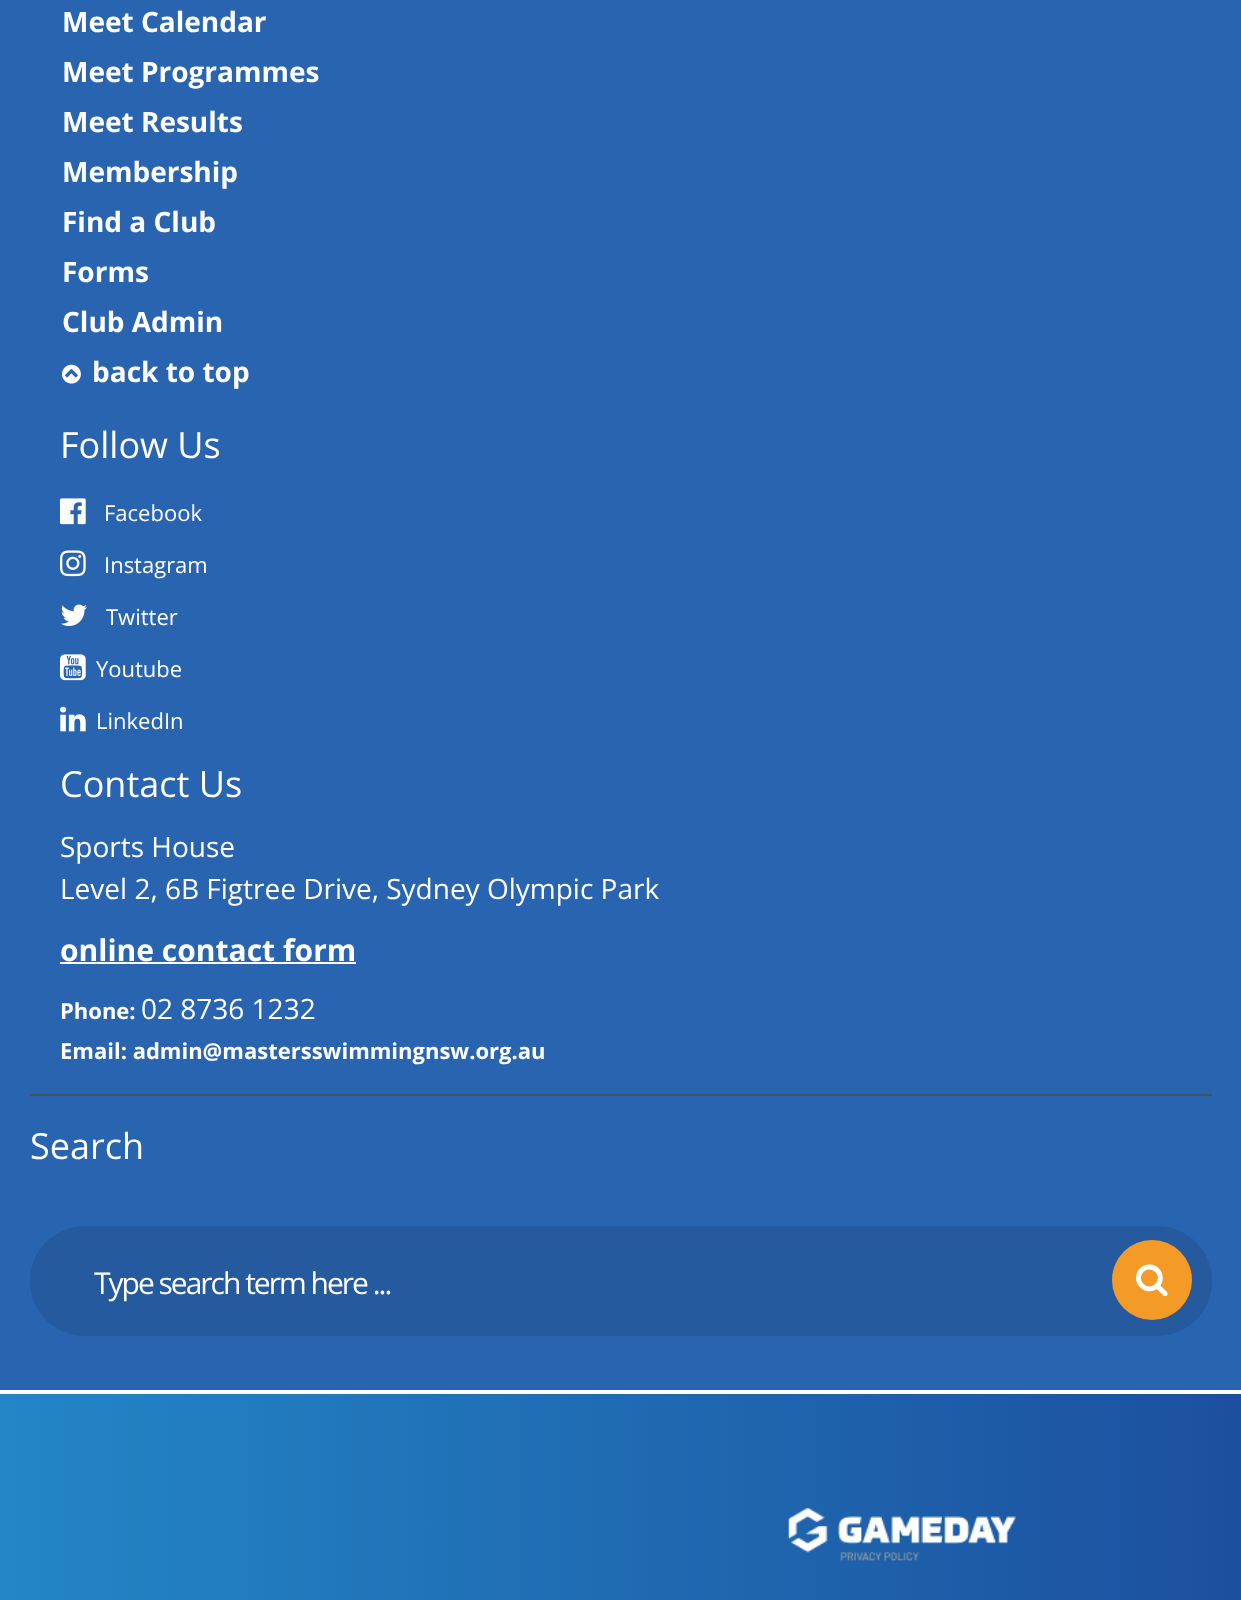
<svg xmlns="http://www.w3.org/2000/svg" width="1241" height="1600">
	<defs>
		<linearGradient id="g1" gradientUnits="userSpaceOnUse" x1="0" y1="1497" x2="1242" y2="1497"><stop offset="0" stop-color="#2386C6" /><stop offset="1" stop-color="#1C509F" /></linearGradient>
	</defs>
	<rect width="100%" height="100%" fill="#2964B1" />
	<g font-family="Open Sans" font-size="28" font-weight="700" fill="#FFFFFF">
		<text x="62" y="32">Meet Calendar</text>
		<text x="62" y="82">Meet Programmes</text>
		<text x="62" y="132">Meet Results</text>
		<text x="62" y="182">Membership</text>
		<text x="62" y="232">Find a Club</text>
		<text x="62" y="282">Forms</text>
		<text x="62" y="332">Club Admin</text>
	</g>
	<image x="62" y="364" width="19" height="20" href="assets/img1.png" />
	<text x="92" y="382" font-family="Open Sans" font-size="28" font-weight="700" fill="#FFFFFF">back to top</text>
	<text x="60" y="458" font-family="Open Sans" font-size="36" fill="#FFFFFF">Follow Us</text>
	<image x="60" y="498" width="26" height="27" href="assets/img2.png" />
	<text x="104" y="521" font-family="Open Sans" font-size="22" fill="#FFFFFF">Facebook</text>
	<image x="60" y="550" width="26" height="27" href="assets/img3.png" />
	<text x="104" y="573" font-family="Open Sans" font-size="22" fill="#FFFFFF">Instagram</text>
	<image x="61" y="604" width="26" height="22" href="assets/img4.png" />
	<text x="106" y="625" font-family="Open Sans" font-size="22" fill="#FFFFFF">Twitter</text>
	<image x="60" y="654" width="26" height="27" href="assets/img5.png" />
	<text x="96" y="677" font-family="Open Sans" font-size="22" fill="#FFFFFF">Youtube</text>
	<image x="60" y="706" width="26" height="26" href="assets/img6.png" />
	<text x="96" y="729" font-family="Open Sans" font-size="22" fill="#FFFFFF">LinkedIn</text>
	<text x="60" y="797" font-family="Open Sans" font-size="36" fill="#FFFFFF">Contact Us</text>
	<g font-family="Open Sans" font-size="28" fill="#FFFFFF">
		<text x="60" y="857">Sports House</text>
		<text x="60" y="899">Level 2, 6B Figtree Drive, Sydney Olympic Park</text>
	</g>
	<text x="60" y="961" font-family="Open Sans" font-size="30" font-weight="700" fill="#FFFFFF">online contact form</text>
	<rect x="60" y="962" width="296" height="2" fill="#FFFFFF" />
	<text x="60" y="1019" font-family="Open Sans" font-size="22" font-weight="700" fill="#FFFFFF">Phone:</text>
	<text x="141" y="1019" font-family="Open Sans" font-size="28" fill="#FFFFFF">02 8736 1232</text>
	<text x="60" y="1059" font-family="Open Sans" font-size="22" font-weight="700" fill="#FFFFFF">Email: admin@mastersswimmingnsw.org.au</text>
	<rect x="30" y="1094" width="1182" height="2" fill="#4B4F56" />
	<text x="30" y="1159" font-family="Open Sans" font-size="36" fill="#FFFFFF">Search</text>
	<rect x="30" y="1226" width="1182" height="110" rx="55" fill="#255A9F" />
	<text x="94" y="1294" font-family="Open Sans" font-size="30" letter-spacing="-2" fill="#FFFFFF">Type search term here ...</text>
	<circle cx="1152" cy="1280" r="40" fill="#F39A27" />
	<text x="1136" y="1291" font-family="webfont" font-size="34" fill="#FFFFFF">s</text>
	<rect x="0" y="1394" width="1241" height="206" fill="url(#g1)" />
	<rect x="0" y="1390" width="1241" height="4" fill="#FFFFFF" />
	<image x="788" y="1508" width="228" height="53" href="assets/img7.png" />
</svg>
